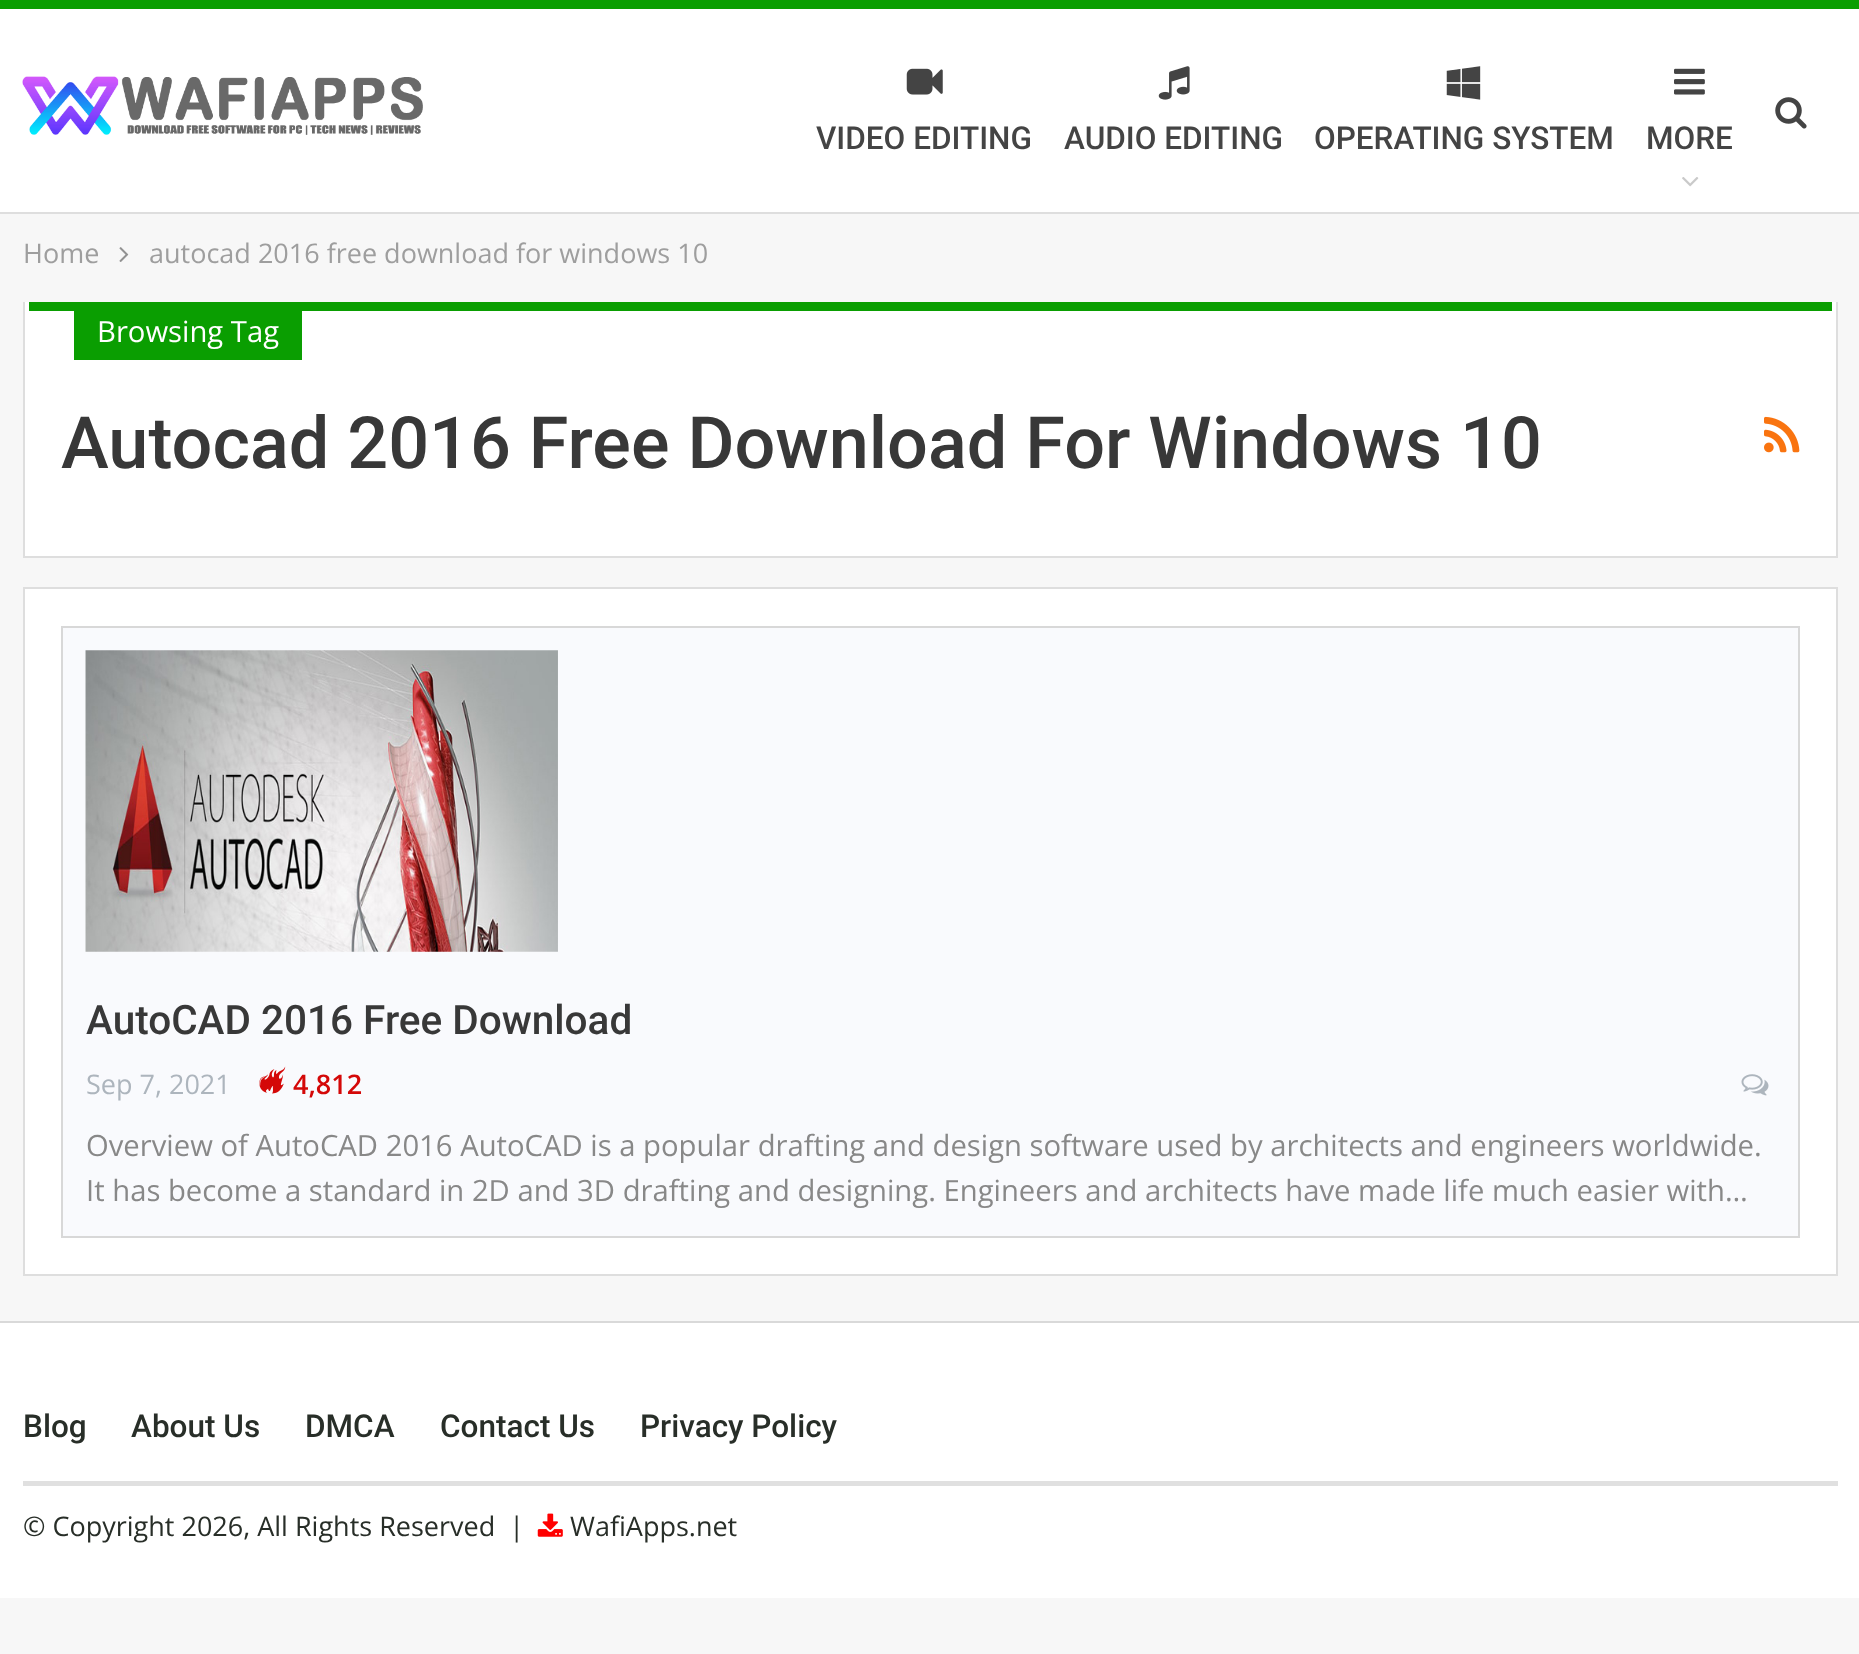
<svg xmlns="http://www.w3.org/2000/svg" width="1859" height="1654">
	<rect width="100%" height="100%" fill="#F7F7F7" />
	<rect x="0" y="0" width="1859" height="9" fill="#0A9E01" />
	<rect x="0" y="9" width="1859" height="203" fill="#FFFFFF" />
	<rect x="0" y="212" width="1859" height="2" fill="#DEDEDE" />
	<image x="22" y="76" width="401" height="59" href="assets/img1.png" />
	<image x="1775" y="97" width="32" height="32" href="assets/img2.png" />
	<image x="906" y="68" width="37" height="27" href="assets/img3.png" />
	<text x="816" y="149" font-family="Roboto" font-size="31.5" font-weight="500" fill="#444444">VIDEO EDITING</text>
	<image x="1158" y="66" width="32" height="34" href="assets/img4.png" />
	<text x="1064" y="149" font-family="Roboto" font-size="31.5" font-weight="500" fill="#444444">AUDIO EDITING</text>
	<image x="1446" y="66" width="35" height="34" href="assets/img5.png" />
	<text x="1314" y="149" font-family="Roboto" font-size="31.5" font-weight="500" fill="#444444">OPERATING SYSTEM</text>
	<image x="1674" y="68" width="31" height="27" href="assets/img6.png" />
	<text x="1646" y="149" font-family="Roboto" font-size="31.5" font-weight="500" fill="#444444">MORE</text>
	<image x="1682" y="177" width="17" height="10" href="assets/img7.png" />
	<text x="23" y="263" font-family="Open Sans" font-size="27" fill="#9E9E9E">Home</text>
	<image x="119" y="247" width="10" height="15" href="assets/img8.png" />
	<text x="149" y="263" font-family="Open Sans" font-size="27" fill="#9E9E9E">autocad 2016 free download for windows 10</text>
	<rect x="25" y="302" width="1811" height="254" fill="#FFFFFF" />
	<rect x="1836" y="302" width="2" height="256" fill="#DEDEDE" />
	<rect x="23" y="556" width="1815" height="2" fill="#DEDEDE" />
	<rect x="23" y="302" width="2" height="256" fill="#DEDEDE" />
	<rect x="29" y="302" width="1803" height="9" fill="#0A9E01" />
	<rect x="74" y="311" width="228" height="49" fill="#0A9E01" />
	<text x="97" y="342" font-family="Open Sans" font-size="29.25" fill="#FFFFFF">Browsing Tag</text>
	<text x="61" y="468" font-family="Roboto" font-size="72" font-weight="500" fill="#383838">Autocad 2016 Free Download For Windows 10</text>
	<image x="1764" y="416" width="36" height="37" href="assets/img9.png" />
	<rect x="24" y="588" width="1813" height="687" fill="#FFFFFF" stroke="#DEDEDE" stroke-width="2" />
	<rect x="62" y="627" width="1737" height="610" fill="#F9FAFD" stroke="#D8D8D8" stroke-width="2" />
	<image x="85" y="650" width="473" height="302" href="assets/img10.png" />
	<text x="86" y="1034" font-family="Roboto" font-size="40.5" font-weight="500" fill="#383838">AutoCAD 2016 Free Download</text>
	<text x="86" y="1094" font-family="Open Sans" font-size="27" fill="#ADB5BD">Sep 7, 2021</text>
	<image x="259" y="1066" width="27" height="28" href="assets/img11.png" />
	<text x="293" y="1094" font-family="Open Sans" font-size="27" font-weight="600" fill="#D40808">4,812</text>
	<image x="1741" y="1074" width="28" height="22" href="assets/img12.png" />
	<g font-family="Open Sans" font-size="29.25" fill="#888888">
		<text x="86" y="1156">Overview of AutoCAD 2016 AutoCAD is a popular drafting and design software used by architects and engineers worldwide.</text>
		<text x="86" y="1201">It has become a standard in 2D and 3D drafting and designing. Engineers and architects have made life much easier with…</text>
	</g>
	<rect x="0" y="1323" width="1859" height="275" fill="#FFFFFF" />
	<rect x="0" y="1321" width="1859" height="2" fill="#D9D9D9" />
	<rect x="23" y="1481" width="1815" height="5" fill="#E0E0E0" />
	<g font-family="Roboto" font-size="31.5" font-weight="500" fill="#282E28">
		<text x="23" y="1437">Blog</text>
		<text x="131" y="1437">About Us</text>
		<text x="305" y="1437">DMCA</text>
		<text x="440" y="1437">Contact Us</text>
		<text x="640" y="1437">Privacy Policy</text>
	</g>
	<text x="23" y="1536" font-family="Open Sans" font-size="27" fill="#282E28" xml:space="preserve">© Copyright 2026, All Rights Reserved  |</text>
	<image x="537" y="1513" width="26" height="24" href="assets/img13.png" />
	<text x="570" y="1536" font-family="Open Sans" font-size="27" fill="#282E28">WafiApps.net</text>
</svg>
